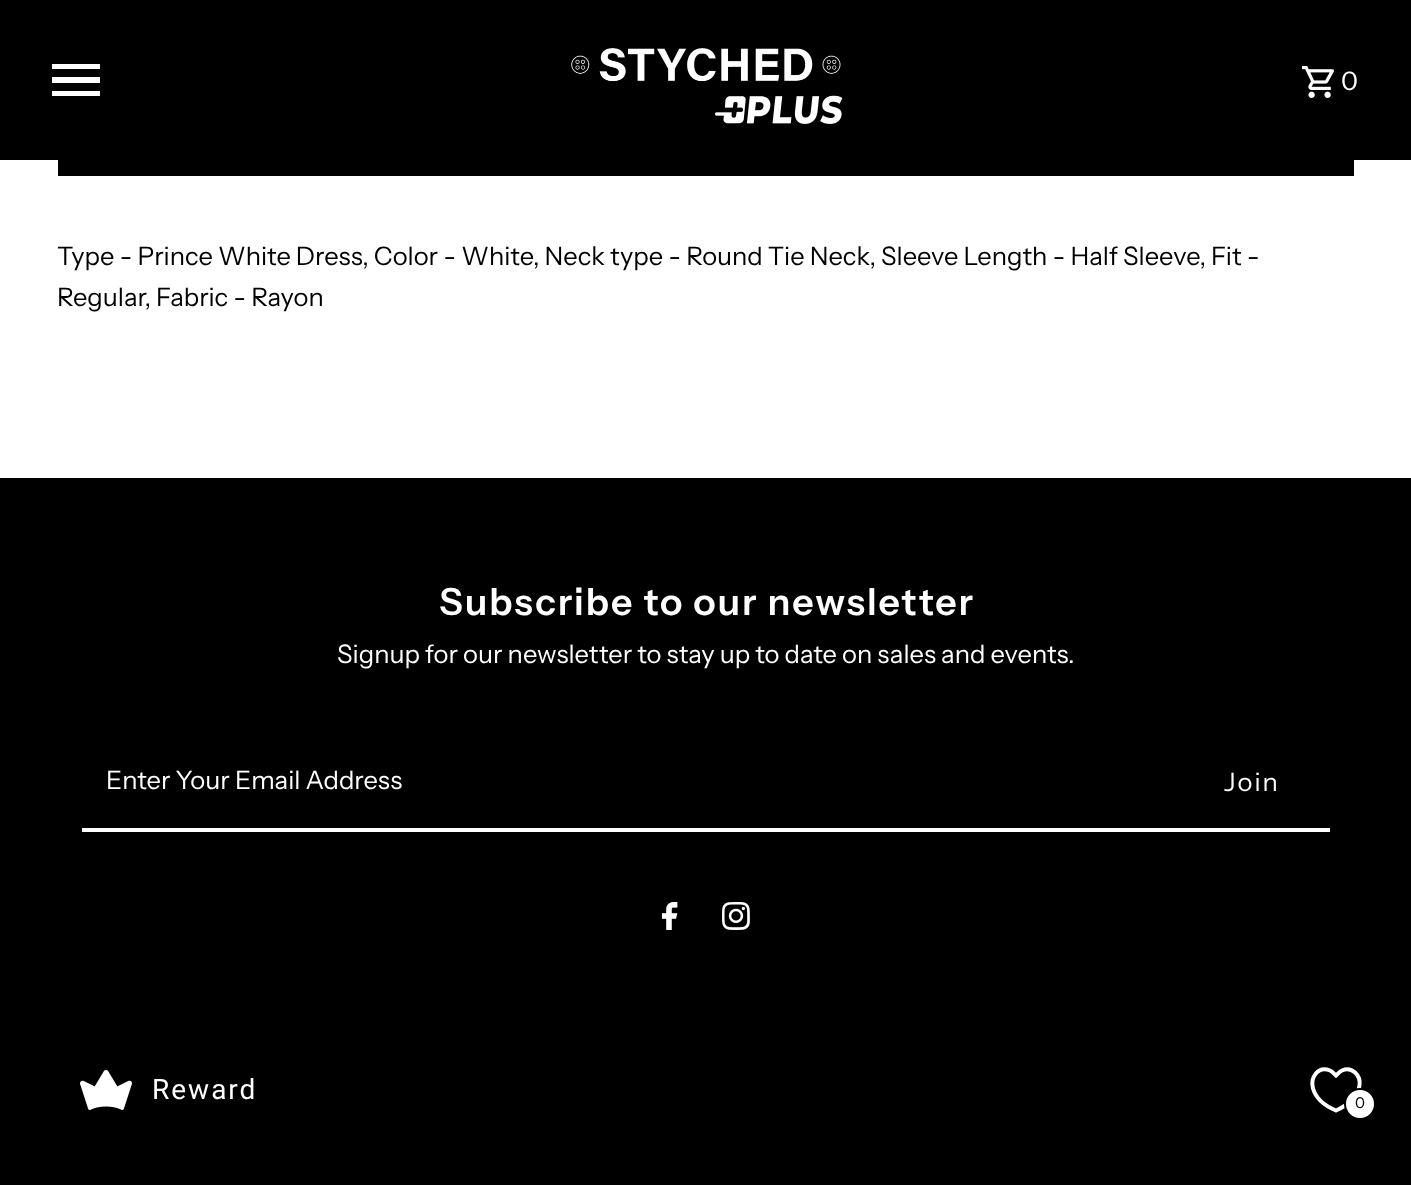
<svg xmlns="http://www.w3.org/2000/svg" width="1411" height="1185">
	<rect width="100%" height="100%" fill="#FFFFFF" />
	<rect x="0" y="0" width="1411" height="160" fill="#000000" />
	<rect x="52" y="91" width="48" height="5" fill="#FFFFFF" />
	<rect x="52" y="77" width="48" height="6" fill="#FFFFFF" />
	<rect x="52" y="64" width="48" height="5" fill="#FFFFFF" />
	<image x="571" y="48" width="272" height="77" href="assets/img1.png" />
	<image x="1302" y="66" width="32" height="32" href="assets/img2.png" />
	<text x="1341" y="90" font-family="Instrument Sans" font-size="25.5" letter-spacing="2" fill="#FFFFFF">0</text>
	<rect x="58" y="160" width="1296" height="16" fill="#000000" />
	<g font-family="Instrument Sans" font-size="25.5" fill="#000000">
		<text x="57" y="265">Type - Prince White Dress, Color - White, Neck type - Round Tie Neck, Sleeve Length - Half Sleeve, Fit -</text>
		<text x="57" y="306">Regular, Fabric - Rayon</text>
	</g>
	<rect x="0" y="478" width="1411" height="707" fill="#000000" />
	<text x="439" y="615" font-family="Instrument Sans" font-size="37.4" font-weight="600" letter-spacing="1.9" fill="#FFFFFF">Subscribe to our newsletter</text>
	<text x="337" y="663" font-family="Instrument Sans" font-size="25.5" fill="#FFFFFF">Signup for our newsletter to stay up to date on sales and events.</text>
	<rect x="82" y="828" width="1248" height="4" fill="#FFFFFF" />
	<text x="106" y="789" font-family="Instrument Sans" font-size="25.5" fill="#FFFFFF">Enter Your Email Address</text>
	<text x="1224" y="791" font-family="Instrument Sans" font-size="25.5" letter-spacing="2" fill="#FFFFFF">Join</text>
	<image x="662" y="902" width="16" height="28" href="assets/img3.png" />
	<image x="722" y="902" width="28" height="28" href="assets/img4.png" />
	<image x="80" y="1070" width="52" height="40" href="assets/img5.png" />
	<text x="152" y="1099" font-family="Roboto" font-size="28" letter-spacing="2" fill="#FFFFFF">Reward</text>
	<path d="M1336 1110.5C1326.5 1106.5 1316 1099 1313 1088.5C1310 1077.5 1318 1065.5 1330 1070.5C1332.5 1071.5 1334 1073.5 1336 1075.5C1338 1073.5 1339.5 1071.5 1342 1070.5C1352 1066 1361 1075.5 1359.5 1085.5C1358 1097.5 1346.5 1106 1336 1110.5Z" fill="none" stroke="#FFFFFF" stroke-width="4" />
	<circle cx="1360" cy="1104" r="15" fill="#FFFFFF" stroke="#000000" stroke-width="2" />
	<text x="1355" y="1108" font-family="Instrument Sans" font-size="15" fill="#000000">0</text>
</svg>
